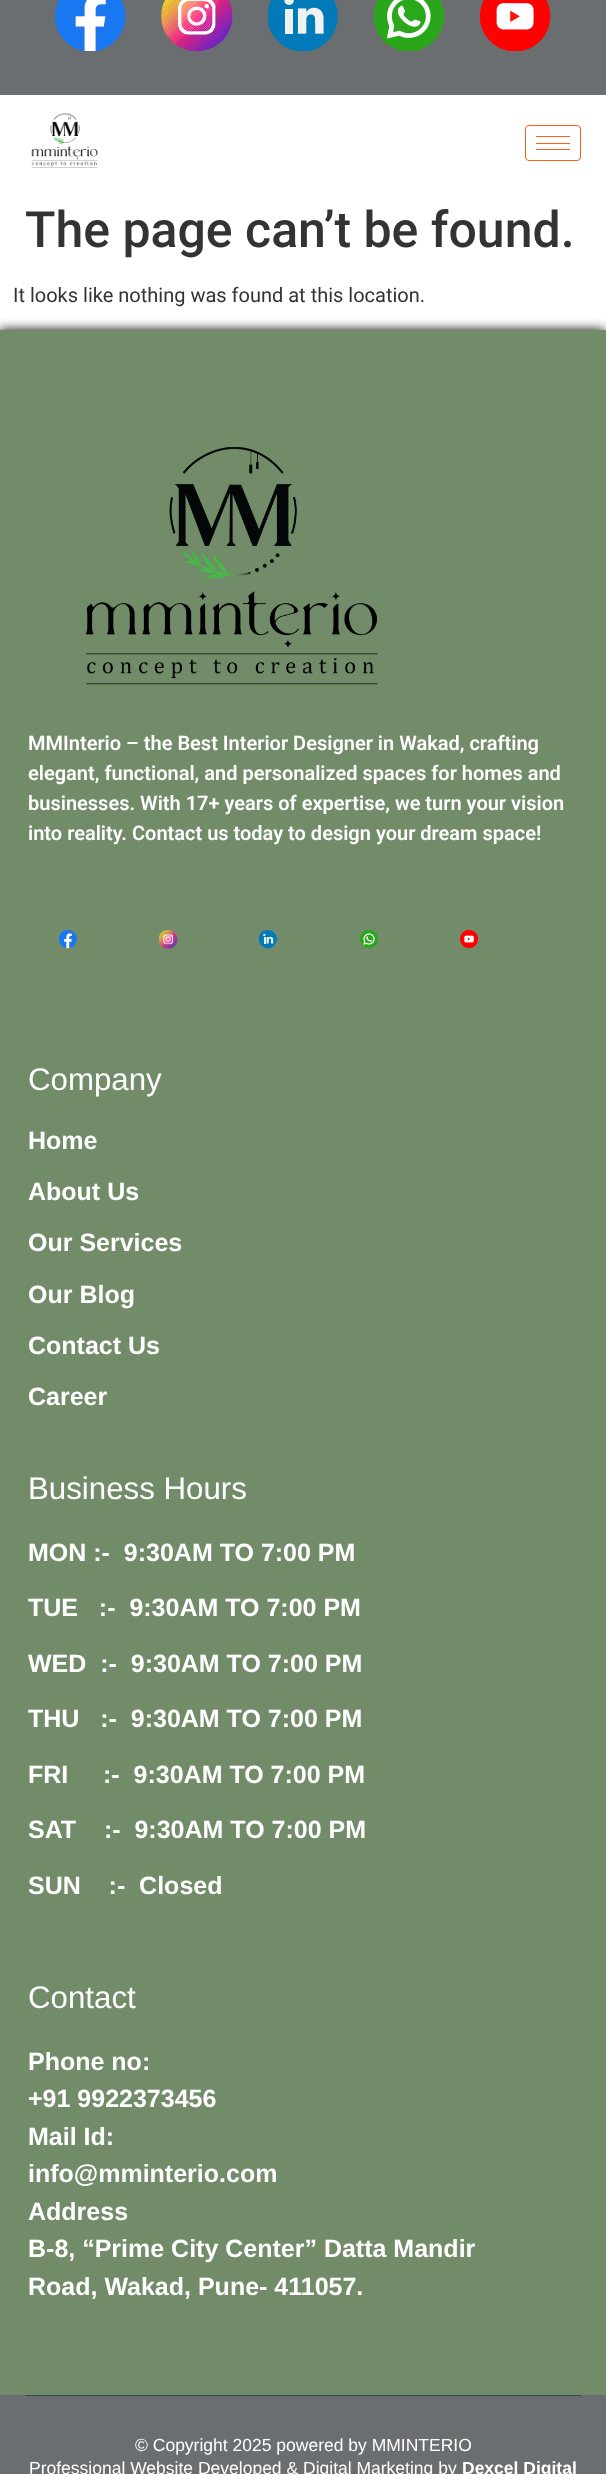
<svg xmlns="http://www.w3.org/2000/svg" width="606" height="2474">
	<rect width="100%" height="100%" fill="#FFFFFF" />
	<rect x="0" y="0" width="606" height="95" fill="#6B6E70" />
	<image x="55" y="0" width="71" height="51" href="assets/img1.png" />
	<image x="161" y="0" width="72" height="51" href="assets/img2.png" />
	<image x="268" y="0" width="70" height="51" href="assets/img3.png" />
	<image x="374" y="0" width="70" height="51" href="assets/img4.png" />
	<image x="480" y="0" width="71" height="51" href="assets/img5.png" />
	<image x="31" y="113" width="67" height="55" href="assets/img6.png" />
	<rect x="525.5" y="125.5" width="55" height="35" rx="3.5" fill="none" stroke="#FF5E13" />
	<rect x="536" y="136" width="34" height="1" fill="#FF5E13" />
	<rect x="536" y="143" width="34" height="1" fill="#FF5E13" />
	<rect x="536" y="149" width="34" height="1" fill="#FF5E13" />
	<text x="25" y="247" font-family="Roboto" font-size="50" font-weight="500" fill="#333333">The page can’t be found.</text>
	<text x="13" y="302" font-family="Roboto" font-size="20" fill="#333333">It looks like nothing was found at this location.</text>
	<rect x="-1" y="330" width="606" height="2065" fill="#000000" filter="blur(6px)" />
	<rect x="0" y="330" width="606" height="2065" fill="#728C69" />
	<image x="86" y="447" width="292" height="238" href="assets/img7.png" />
	<g font-family="Roboto" font-size="20" font-weight="600" fill="#FFFFFF">
		<text x="28" y="750">MMInterio – the Best Interior Designer in Wakad, crafting</text>
		<text x="28" y="780">elegant, functional, and personalized spaces for homes and</text>
		<text x="28" y="810">businesses. With 17+ years of expertise, we turn your vision</text>
		<text x="28" y="840">into reality. Contact us today to design your dream space!</text>
	</g>
	<image x="59" y="930" width="18" height="19" href="assets/img8.png" />
	<image x="159" y="930" width="19" height="19" href="assets/img9.png" />
	<image x="259" y="930" width="18" height="19" href="assets/img10.png" />
	<image x="360" y="930" width="18" height="19" href="assets/img11.png" />
	<image x="460" y="930" width="18" height="19" href="assets/img12.png" />
	<text x="28" y="1090" font-family="Liberation Sans" font-size="31.25" fill="#FFFFFF">Company</text>
	<g font-family="Liberation Sans" font-size="25" font-weight="700" fill="#FFFFFF">
		<text x="28" y="1149">Home</text>
		<text x="28" y="1200">About Us</text>
		<text x="28" y="1251">Our Services</text>
		<text x="28" y="1303">Our Blog</text>
		<text x="28" y="1354">Contact Us</text>
		<text x="28" y="1405">Career</text>
	</g>
	<text x="28" y="1499" font-family="Liberation Sans" font-size="31.25" fill="#FFFFFF">Business Hours</text>
	<g font-family="Liberation Sans" font-size="25" font-weight="700" fill="#FFFFFF">
		<text x="28" y="1561" xml:space="preserve">MON :-  9:30AM TO 7:00 PM</text>
		<text x="28" y="1616" xml:space="preserve">TUE   :-  9:30AM TO 7:00 PM</text>
		<text x="28" y="1672" xml:space="preserve">WED  :-  9:30AM TO 7:00 PM</text>
		<text x="28" y="1727" xml:space="preserve">THU   :-  9:30AM TO 7:00 PM</text>
		<text x="28" y="1783" xml:space="preserve">FRI     :-  9:30AM TO 7:00 PM</text>
		<text x="28" y="1838" xml:space="preserve">SAT    :-  9:30AM TO 7:00 PM</text>
		<text x="28" y="1894" xml:space="preserve">SUN    :-  Closed</text>
	</g>
	<text x="28" y="2008" font-family="Liberation Sans" font-size="31.25" fill="#FFFFFF">Contact</text>
	<g font-family="Liberation Sans" font-size="25" font-weight="700" fill="#FFFFFF">
		<text x="28" y="2070">Phone no:</text>
		<text x="28" y="2107">+91 9922373456</text>
		<text x="28" y="2145">Mail Id:</text>
		<text x="28" y="2182">info@mminterio.com</text>
		<text x="28" y="2220">Address</text>
		<text x="28" y="2257">B-8, “Prime City Center” Datta Mandir</text>
		<text x="28" y="2295">Road, Wakad, Pune- 411057.</text>
	</g>
	<rect x="0" y="2395" width="606" height="79" fill="#6B6E70" />
	<rect x="25" y="2395" width="556" height="1" fill="#344C5A" />
	<g font-family="Liberation Sans" font-size="17.5" fill="#FFFFFF">
		<text x="135" y="2451">© Copyright 2025 powered by MMINTERIO</text>
		<text x="29" y="2474">Professional Website Developed &amp; Digital Marketing by</text>
	</g>
	<text x="462" y="2474" font-family="Liberation Sans" font-size="17.5" font-weight="700" fill="#FFFFFF">Dexcel Digital</text>
</svg>
